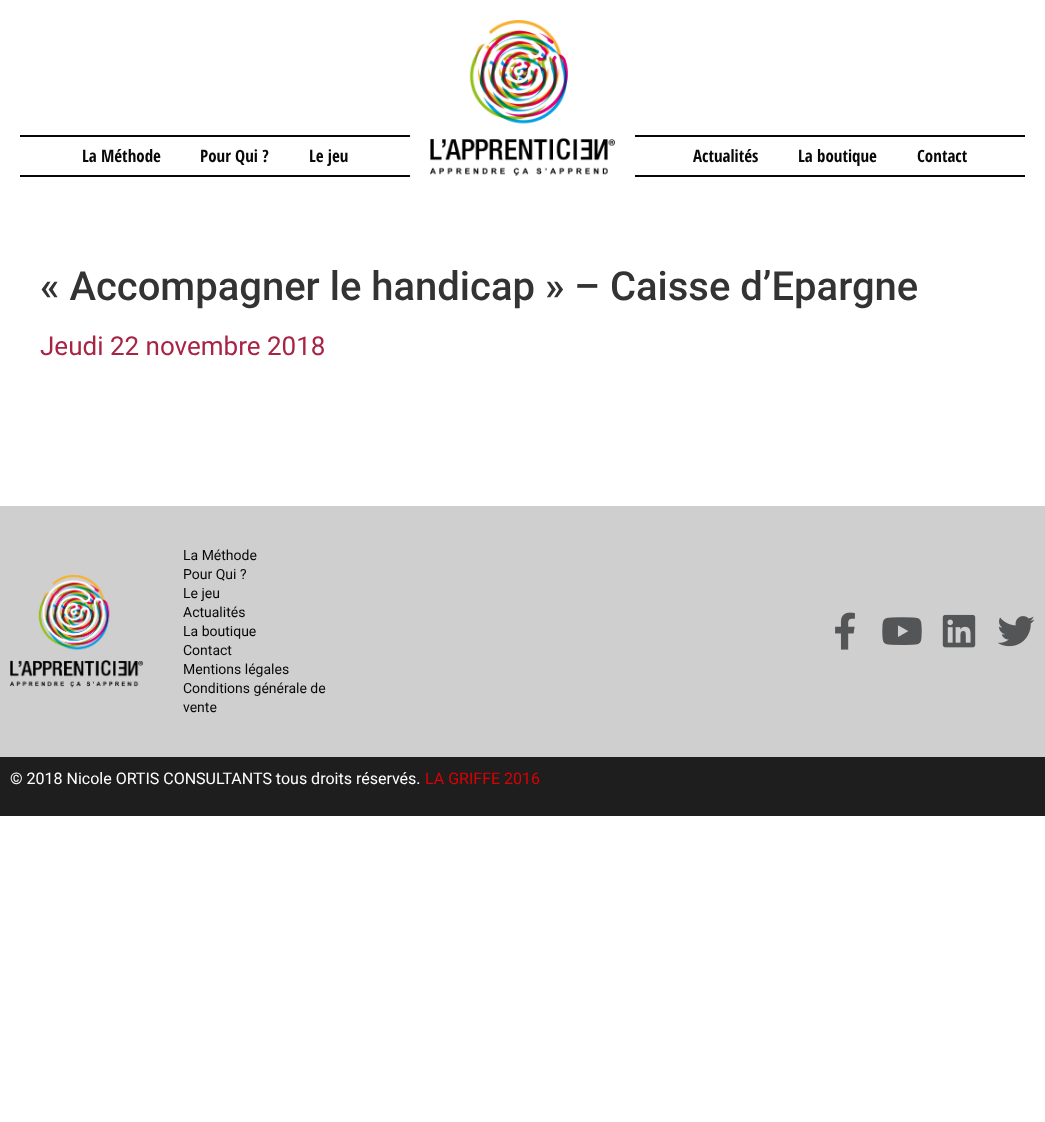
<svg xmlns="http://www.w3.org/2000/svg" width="1045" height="1122">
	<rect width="100%" height="100%" fill="#FFFFFF" />
	<rect x="20" y="135" width="390" height="2" fill="#080808" />
	<rect x="20" y="175" width="390" height="2" fill="#080808" />
	<g font-family="Open Sans Condensed" font-size="17" font-weight="700" fill="#080808">
		<text x="82" y="162">La Méthode</text>
		<text x="200" y="162">Pour Qui ?</text>
		<text x="309" y="162">Le jeu</text>
	</g>
	<image x="430" y="20" width="185" height="156" href="assets/img1.png" />
	<rect x="635" y="135" width="390" height="2" fill="#080808" />
	<rect x="635" y="175" width="390" height="2" fill="#080808" />
	<g font-family="Open Sans Condensed" font-size="17" font-weight="700" fill="#080808">
		<text x="693" y="162">Actualités</text>
		<text x="798" y="162">La boutique</text>
		<text x="917" y="162">Contact</text>
	</g>
	<text x="40" y="300" font-family="Roboto" font-size="40" font-weight="500" fill="#333333">« Accompagner le handicap » – Caisse d’Epargne</text>
	<text x="40" y="355" font-family="Roboto" font-size="26" fill="#A82344">Jeudi 22 novembre 2018</text>
	<rect x="0" y="506" width="1045" height="251" fill="#CFCFCF" />
	<image x="10" y="575" width="133" height="113" href="assets/img2.png" />
	<g font-family="Roboto" font-size="14" fill="#080808">
		<text x="183" y="560">La Méthode</text>
		<text x="183" y="579">Pour Qui ?</text>
		<text x="183" y="598">Le jeu</text>
		<text x="183" y="617">Actualités</text>
		<text x="183" y="636">La boutique</text>
		<text x="183" y="655">Contact</text>
		<text x="183" y="674">Mentions légales</text>
		<text x="183" y="693">Conditions générale de</text>
		<text x="183" y="712">vente</text>
	</g>
	<image x="835" y="612" width="20" height="38" href="assets/img3.png" />
	<image x="882" y="617" width="40" height="28" href="assets/img4.png" />
	<image x="942" y="614" width="34" height="34" href="assets/img5.png" />
	<image x="997" y="616" width="38" height="31" href="assets/img6.png" />
	<rect x="0" y="757" width="1045" height="59" fill="#1E1E1E" />
	<text x="10" y="784" font-family="Roboto" font-size="16" fill="#FFFFFF">© 2018 Nicole ORTIS CONSULTANTS tous droits réservés.</text>
	<text x="425" y="784" font-family="Roboto" font-size="16" fill="#DD0000">LA GRIFFE 2016</text>
</svg>
